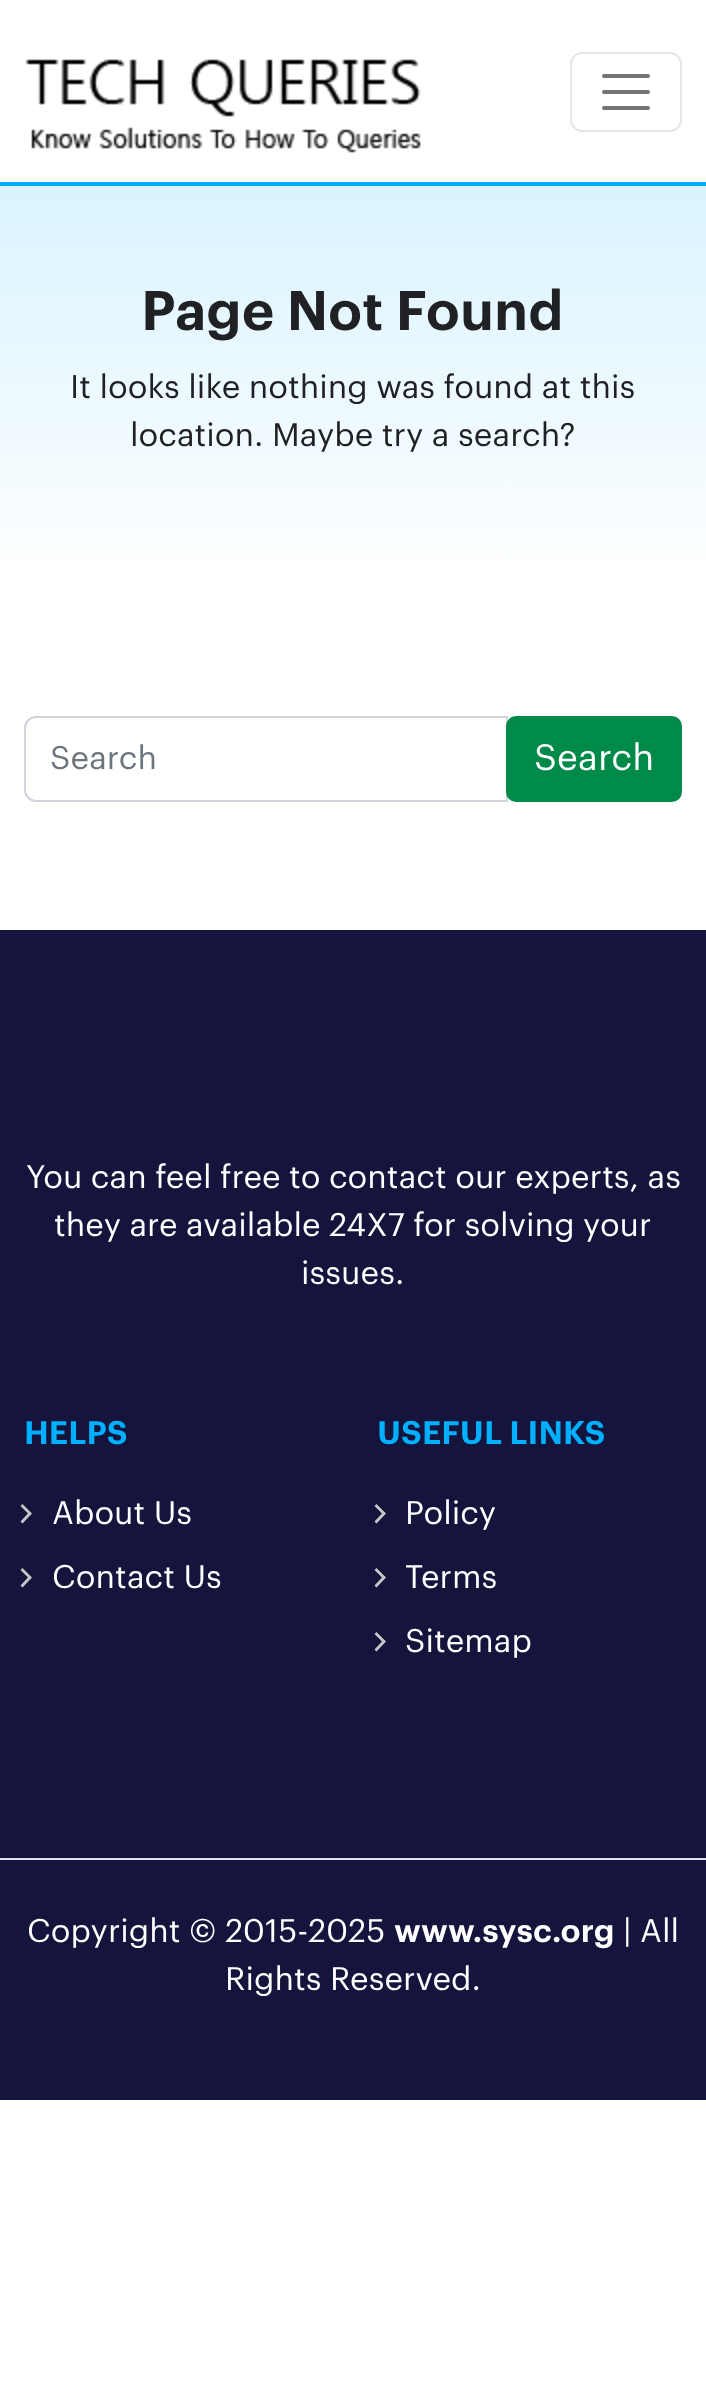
<svg xmlns="http://www.w3.org/2000/svg" width="706" height="2396">
	<defs>
		<linearGradient id="g1" gradientUnits="userSpaceOnUse" x1="353" y1="186" x2="353" y2="588"><stop offset="0" stop-color="#D9F3FF" /><stop offset="1" stop-color="#FFFFFF" /></linearGradient>
	</defs>
	<rect width="100%" height="100%" fill="#FFFFFF" />
	<rect x="0" y="182" width="706" height="4" fill="#00ACFF" />
	<image x="25" y="59" width="396" height="94" href="assets/img1.png" />
	<rect x="571" y="53" width="110" height="78" rx="11" fill="none" stroke="#E6E6E6" stroke-width="2" />
	<path d="M604 76H648M604 92H648M604 108H648" fill="none" stroke="#737373" stroke-width="4" stroke-linecap="round" />
	<rect x="0" y="186" width="706" height="376" fill="url(#g1)" />
	<text x="141" y="330" font-family="Graphik" font-size="54.5" font-weight="600" fill="#202124">Page Not Found</text>
	<g font-family="Graphik" font-size="32" fill="#202124">
		<text x="70" y="398">It looks like nothing was found at this</text>
		<text x="130" y="446">location. Maybe try a search?</text>
	</g>
	<path d="M36 717H507V801H36C30 801 25 796 25 790V728C25 722 30 717 36 717Z" fill="none" stroke="#CED4DA" stroke-width="2" />
	<text x="50" y="769" font-family="Graphik" font-size="32" fill="#6C757D">Search</text>
	<rect x="508" y="718" width="172" height="82" rx="8" fill="#008A4A" stroke="#008A4A" stroke-width="4" />
	<text x="534" y="770" font-family="Graphik" font-size="36" fill="#FFFFFF">Search</text>
	<rect x="0" y="930" width="706" height="1170" fill="#14143C" />
	<g font-family="Graphik" font-size="32" fill="#FFFFFF">
		<text x="26" y="1188">You can feel free to contact our experts, as</text>
		<text x="54" y="1236">they are available 24X7 for solving your</text>
		<text x="301" y="1284">issues.</text>
	</g>
	<text x="24" y="1444" font-family="Graphik" font-size="32" font-weight="600" fill="#00B0FF">HELPS</text>
	<path d="M22.5 1504L32 1513.5L22.5 1523.5L20.5 1521.5L28 1513.5L20.5 1506Z" fill="#C8C8C8" />
	<text x="52" y="1524" font-family="Graphik" font-size="32" fill="#FFFFFF">About Us</text>
	<path d="M22.5 1568L32 1577.5L22.5 1587.5L20.5 1585.5L28 1577.5L20.5 1570Z" fill="#C8C8C8" />
	<text x="52" y="1588" font-family="Graphik" font-size="32" fill="#FFFFFF">Contact Us</text>
	<text x="377" y="1444" font-family="Graphik" font-size="32" font-weight="600" fill="#00B0FF">USEFUL LINKS</text>
	<path d="M376.5 1504L386 1513.5L376.5 1523.5L374.5 1521.5L382 1513.5L374.5 1506Z" fill="#C8C8C8" />
	<text x="405" y="1524" font-family="Graphik" font-size="32" fill="#FFFFFF">Policy</text>
	<path d="M376.5 1568L386 1577.5L376.5 1587.5L374.5 1585.5L382 1577.5L374.5 1570Z" fill="#C8C8C8" />
	<text x="405" y="1588" font-family="Graphik" font-size="32" fill="#FFFFFF">Terms</text>
	<path d="M376.5 1632L386 1641.5L376.5 1651.5L374.5 1649.5L382 1641.5L374.5 1634Z" fill="#C8C8C8" />
	<text x="405" y="1652" font-family="Graphik" font-size="32" fill="#FFFFFF">Sitemap</text>
	<rect x="0" y="1858" width="706" height="2" fill="#DEE2E6" />
	<text x="27" y="1942" font-family="Graphik" font-size="32" fill="#FFFFFF">Copyright © 2015-2025</text>
	<text x="394" y="1942" font-family="Graphik" font-size="32" font-weight="600" fill="#FFFFFF">www.sysc.org</text>
	<g font-family="Graphik" font-size="32" fill="#FFFFFF">
		<text x="623" y="1942">| All</text>
		<text x="225" y="1990">Rights Reserved.</text>
	</g>
</svg>
